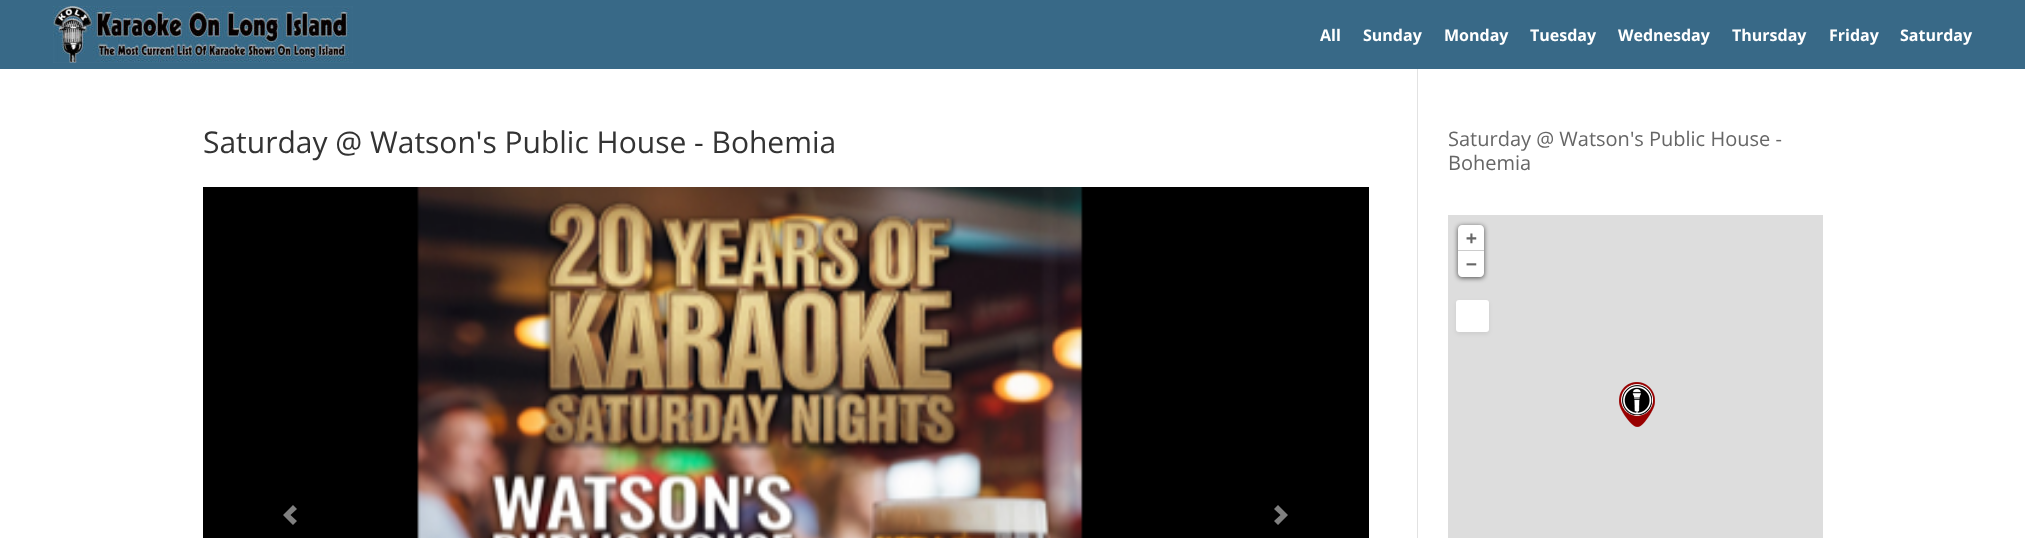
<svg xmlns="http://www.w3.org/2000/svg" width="2025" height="538">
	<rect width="100%" height="100%" fill="#FFFFFF" />
	<rect x="0" y="0" width="2025" height="69" fill="#386987" />
	<image x="53" y="6" width="300" height="57" href="assets/img1.png" />
	<g font-family="Open Sans" font-size="16" font-weight="700" fill="#FFFFFF">
		<text x="1320" y="41">All</text>
		<text x="1363" y="41">Sunday</text>
		<text x="1444" y="41">Monday</text>
		<text x="1530" y="41">Tuesday</text>
		<text x="1618" y="41">Wednesday</text>
		<text x="1732" y="41">Thursday</text>
		<text x="1829" y="41">Friday</text>
		<text x="1900" y="41">Saturday</text>
	</g>
	<rect x="1417" y="69" width="1" height="469" fill="#E2E2E2" />
	<text x="203" y="153" font-family="Open Sans" font-size="30" fill="#333333">Saturday @ Watson's Public House - Bohemia</text>
	<image x="203" y="187" width="1166" height="351" href="assets/img2.png" />
	<path d="M293 505L283 515L293 525L297 521L290.5 515L297 509Z" fill="#808080" />
	<path d="M1278 505L1274 509L1280.5 515L1274 521L1278 525L1288 515Z" fill="#808080" />
	<g font-family="Open Sans" font-size="20" fill="#666666">
		<text x="1448" y="146">Saturday @ Watson's Public House -</text>
		<text x="1448" y="170">Bohemia</text>
	</g>
	<rect x="1448" y="215" width="375" height="323" fill="#DDDDDD" />
	<rect x="1458" y="226" width="26" height="52" rx="4" fill="#000000" fill-opacity="0.65" filter="blur(2.5px)" />
	<path d="M1462 225H1480C1482 225 1484 227 1484 229V251H1458V229C1458 227 1460 225 1462 225Z" fill="#FFFFFF" />
	<rect x="1458" y="250" width="26" height="1" fill="#CCCCCC" />
	<text x="1466" y="244" font-family="DejaVu Sans Mono" font-size="18" font-weight="700" fill="#666666">+</text>
	<path d="M1458 251H1484V273C1484 275 1482 277 1480 277H1462C1460 277 1458 275 1458 273Z" fill="#FFFFFF" />
	<text x="1466" y="270" font-family="DejaVu Sans Mono" font-size="18" font-weight="700" fill="#666666">−</text>
	<image x="1619" y="382" width="36" height="45" href="assets/img3.png" />
	<rect x="1456" y="302" width="33" height="32" rx="3" fill="#000000" fill-opacity="0.07" filter="blur(2px)" />
	<rect x="1456" y="300" width="33" height="32" rx="3" fill="#FFFFFF" />
</svg>
